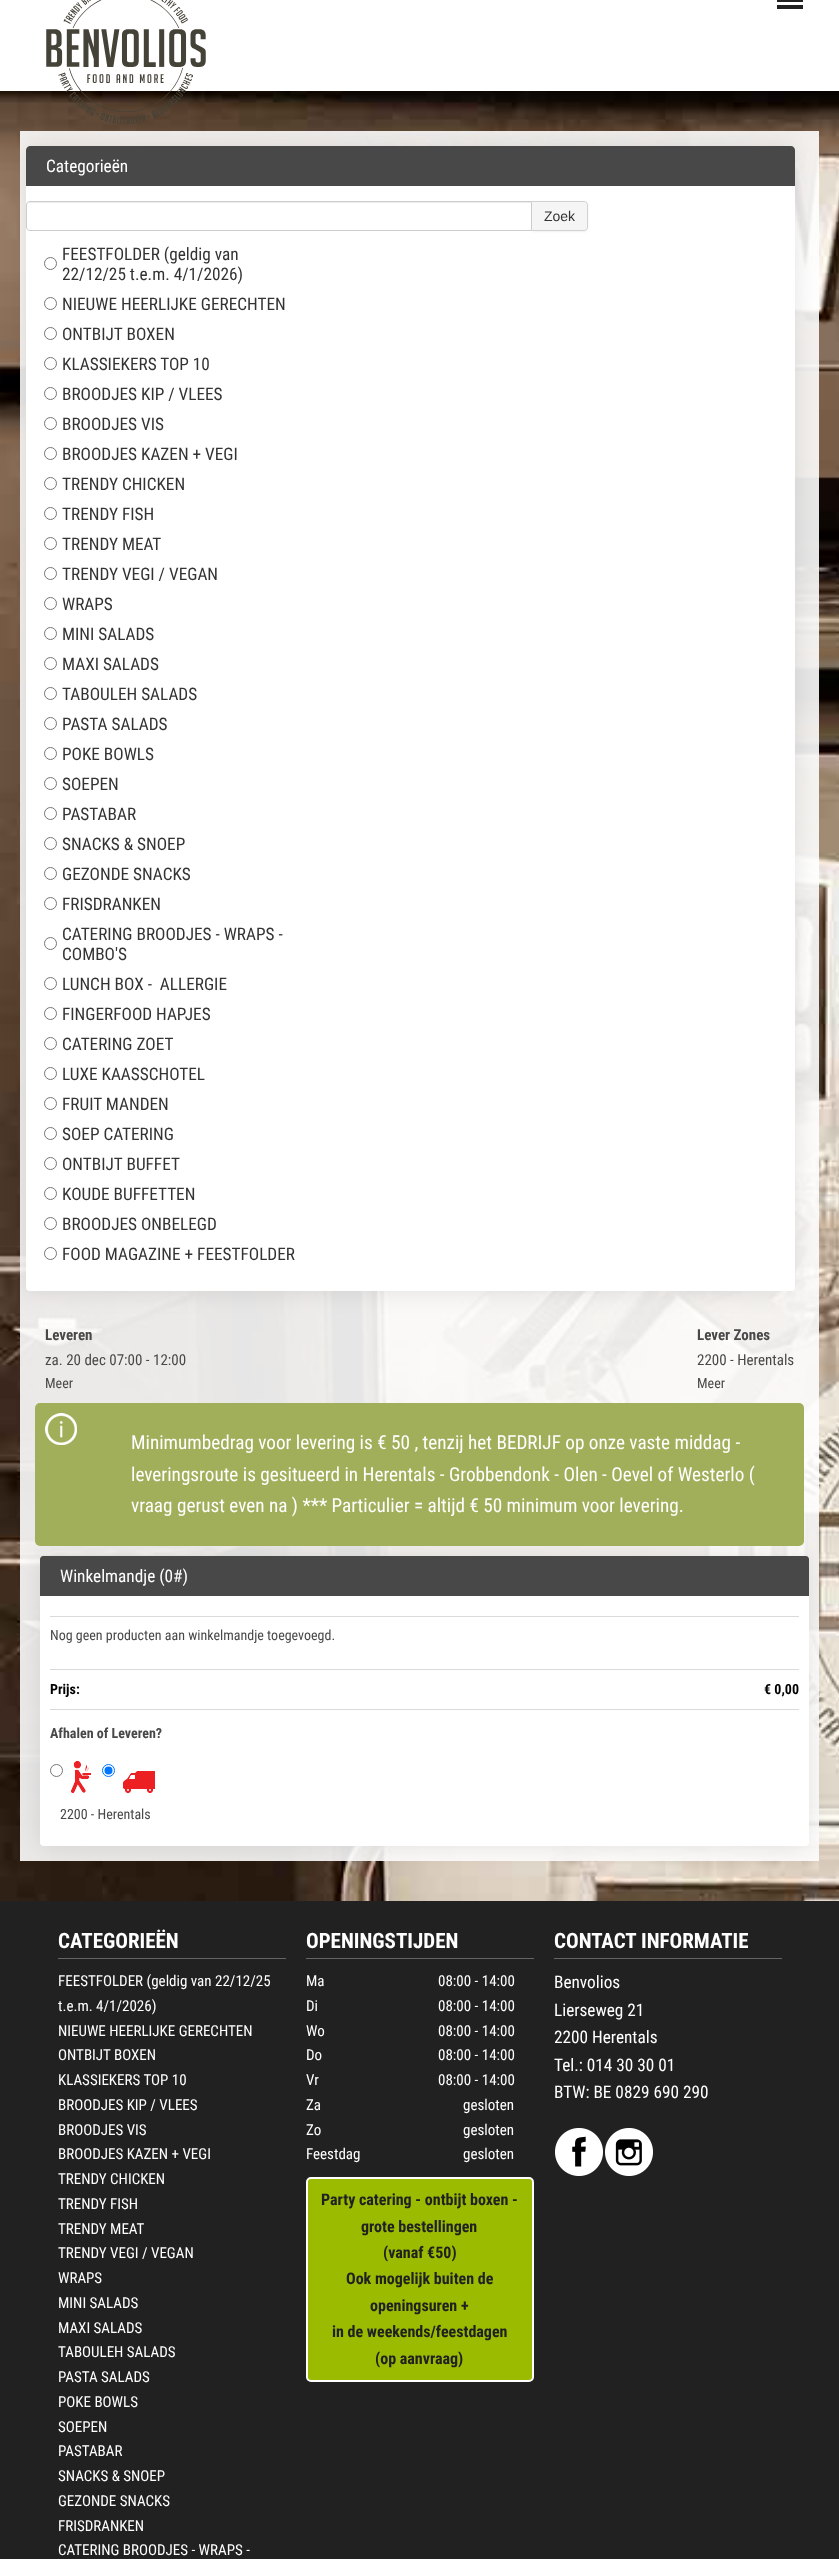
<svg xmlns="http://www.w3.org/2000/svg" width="839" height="2559">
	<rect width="100%" height="100%" fill="#FFFFFF" />
	<image x="0" y="91" width="839" height="1810" href="assets/img2.png" />
	<rect x="26" y="146" width="769" height="1145" rx="4" fill="#000000" fill-opacity="0.1" filter="blur(12.5px)" />
	<image x="46" y="0" width="160" height="125" href="assets/img1.png" />
	<rect x="777" y="0" width="26" height="2" fill="#212121" />
	<rect x="777" y="5" width="26" height="4" fill="#212121" />
	<rect x="26" y="146" width="769" height="1145" rx="4" fill="#FFFFFF" />
	<path d="M30 146H791C793 146 795 148 795 150V186H26V150C26 148 28 146 30 146Z" fill="#494848" />
	<text x="46" y="172" font-family="Roboto Condensed" font-size="17.25" fill="#FFFFFF">Categorieën</text>
	<rect x="531" y="202" width="57" height="30" rx="4" fill="#000000" fill-opacity="0.05" filter="blur(1px)" />
	<path d="M531.5 201.5H584C586 201.5 587.5 203 587.5 205V227C587.5 229 586 230.5 584 230.5H531.5Z" fill="#F5F5F5" stroke="#D1D1D1" />
	<path d="M30 201H532V231H30C28 231 26 229 26 227V205C26 203 28 201 30 201Z" fill="#FFFFFF" />
	<path d="M30 203H531V202H30C28 202 27 204 27 206C27 204 28 203 30 203Z" fill="#ECECEC" />
	<path d="M30 201.5H531.5V230.5H30C28 230.5 26.5 229 26.5 227V205C26.5 203 28 201.5 30 201.5Z" fill="none" stroke="#CCCCCC" />
	<text x="544" y="221" font-family="Liberation Sans" font-size="14" fill="#333333">Zoek</text>
	<circle cx="50.5" cy="263.5" r="6" fill="none" stroke="#767676" />
	<g font-family="Roboto Condensed" font-size="17.25" fill="#333333">
		<text x="62" y="260">FEESTFOLDER (geldig van</text>
		<text x="62" y="280">22/12/25 t.e.m. 4/1/2026)</text>
	</g>
	<circle cx="50.5" cy="303.5" r="6" fill="none" stroke="#767676" />
	<text x="62" y="310" font-family="Roboto Condensed" font-size="17.25" fill="#333333">NIEUWE HEERLIJKE GERECHTEN</text>
	<circle cx="50.5" cy="333.5" r="6" fill="none" stroke="#767676" />
	<text x="62" y="340" font-family="Roboto Condensed" font-size="17.25" fill="#333333">ONTBIJT BOXEN</text>
	<circle cx="50.5" cy="363.5" r="6" fill="none" stroke="#767676" />
	<text x="62" y="370" font-family="Roboto Condensed" font-size="17.25" fill="#333333">KLASSIEKERS TOP 10</text>
	<circle cx="50.5" cy="393.5" r="6" fill="none" stroke="#767676" />
	<text x="62" y="400" font-family="Roboto Condensed" font-size="17.25" fill="#333333">BROODJES KIP / VLEES</text>
	<circle cx="50.5" cy="423.5" r="6" fill="none" stroke="#767676" />
	<text x="62" y="430" font-family="Roboto Condensed" font-size="17.25" fill="#333333">BROODJES VIS</text>
	<circle cx="50.5" cy="453.5" r="6" fill="none" stroke="#767676" />
	<text x="62" y="460" font-family="Roboto Condensed" font-size="17.25" fill="#333333">BROODJES KAZEN + VEGI</text>
	<circle cx="50.5" cy="483.5" r="6" fill="none" stroke="#767676" />
	<text x="62" y="490" font-family="Roboto Condensed" font-size="17.25" fill="#333333">TRENDY CHICKEN</text>
	<circle cx="50.5" cy="513.5" r="6" fill="none" stroke="#767676" />
	<text x="62" y="520" font-family="Roboto Condensed" font-size="17.25" fill="#333333">TRENDY FISH</text>
	<circle cx="50.5" cy="543.5" r="6" fill="none" stroke="#767676" />
	<text x="62" y="550" font-family="Roboto Condensed" font-size="17.25" fill="#333333">TRENDY MEAT</text>
	<circle cx="50.5" cy="573.5" r="6" fill="none" stroke="#767676" />
	<text x="62" y="580" font-family="Roboto Condensed" font-size="17.25" fill="#333333">TRENDY VEGI / VEGAN</text>
	<circle cx="50.5" cy="603.5" r="6" fill="none" stroke="#767676" />
	<text x="62" y="610" font-family="Roboto Condensed" font-size="17.25" fill="#333333">WRAPS</text>
	<circle cx="50.5" cy="633.5" r="6" fill="none" stroke="#767676" />
	<text x="62" y="640" font-family="Roboto Condensed" font-size="17.25" fill="#333333">MINI SALADS</text>
	<circle cx="50.5" cy="663.5" r="6" fill="none" stroke="#767676" />
	<text x="62" y="670" font-family="Roboto Condensed" font-size="17.25" fill="#333333">MAXI SALADS</text>
	<circle cx="50.5" cy="693.5" r="6" fill="none" stroke="#767676" />
	<text x="62" y="700" font-family="Roboto Condensed" font-size="17.25" fill="#333333">TABOULEH SALADS</text>
	<circle cx="50.5" cy="723.5" r="6" fill="none" stroke="#767676" />
	<text x="62" y="730" font-family="Roboto Condensed" font-size="17.25" fill="#333333">PASTA SALADS</text>
	<circle cx="50.5" cy="753.5" r="6" fill="none" stroke="#767676" />
	<text x="62" y="760" font-family="Roboto Condensed" font-size="17.25" fill="#333333">POKE BOWLS</text>
	<circle cx="50.5" cy="783.5" r="6" fill="none" stroke="#767676" />
	<text x="62" y="790" font-family="Roboto Condensed" font-size="17.25" fill="#333333">SOEPEN</text>
	<circle cx="50.5" cy="813.5" r="6" fill="none" stroke="#767676" />
	<text x="62" y="820" font-family="Roboto Condensed" font-size="17.25" fill="#333333">PASTABAR</text>
	<circle cx="50.5" cy="843.5" r="6" fill="none" stroke="#767676" />
	<text x="62" y="850" font-family="Roboto Condensed" font-size="17.25" fill="#333333">SNACKS &amp; SNOEP</text>
	<circle cx="50.5" cy="873.5" r="6" fill="none" stroke="#767676" />
	<text x="62" y="880" font-family="Roboto Condensed" font-size="17.25" fill="#333333">GEZONDE SNACKS</text>
	<circle cx="50.5" cy="903.5" r="6" fill="none" stroke="#767676" />
	<g font-family="Roboto Condensed" font-size="17.25" fill="#333333">
		<text x="62" y="910">FRISDRANKEN</text>
		<text x="62" y="940">CATERING BROODJES - WRAPS -</text>
	</g>
	<circle cx="50.5" cy="943.5" r="6" fill="none" stroke="#767676" />
	<text x="62" y="960" font-family="Roboto Condensed" font-size="17.25" fill="#333333">COMBO'S</text>
	<circle cx="50.5" cy="983.5" r="6" fill="none" stroke="#767676" />
	<text x="62" y="990" font-family="Roboto Condensed" font-size="17.25" fill="#333333" xml:space="preserve">LUNCH BOX -  ALLERGIE</text>
	<circle cx="50.5" cy="1013.5" r="6" fill="none" stroke="#767676" />
	<text x="62" y="1020" font-family="Roboto Condensed" font-size="17.25" fill="#333333">FINGERFOOD HAPJES</text>
	<circle cx="50.5" cy="1043.5" r="6" fill="none" stroke="#767676" />
	<text x="62" y="1050" font-family="Roboto Condensed" font-size="17.25" fill="#333333">CATERING ZOET</text>
	<circle cx="50.5" cy="1073.5" r="6" fill="none" stroke="#767676" />
	<text x="62" y="1080" font-family="Roboto Condensed" font-size="17.25" fill="#333333">LUXE KAASSCHOTEL</text>
	<circle cx="50.5" cy="1103.5" r="6" fill="none" stroke="#767676" />
	<text x="62" y="1110" font-family="Roboto Condensed" font-size="17.25" fill="#333333">FRUIT MANDEN</text>
	<circle cx="50.5" cy="1133.5" r="6" fill="none" stroke="#767676" />
	<text x="62" y="1140" font-family="Roboto Condensed" font-size="17.25" fill="#333333">SOEP CATERING</text>
	<circle cx="50.5" cy="1163.5" r="6" fill="none" stroke="#767676" />
	<text x="62" y="1170" font-family="Roboto Condensed" font-size="17.25" fill="#333333">ONTBIJT BUFFET</text>
	<circle cx="50.5" cy="1193.5" r="6" fill="none" stroke="#767676" />
	<text x="62" y="1200" font-family="Roboto Condensed" font-size="17.25" fill="#333333">KOUDE BUFFETTEN</text>
	<circle cx="50.5" cy="1223.5" r="6" fill="none" stroke="#767676" />
	<text x="62" y="1230" font-family="Roboto Condensed" font-size="17.25" fill="#333333">BROODJES ONBELEGD</text>
	<circle cx="50.5" cy="1253.5" r="6" fill="none" stroke="#767676" />
	<text x="62" y="1260" font-family="Roboto Condensed" font-size="17.25" fill="#333333">FOOD MAGAZINE + FEESTFOLDER</text>
	<text x="45" y="1340" font-family="Roboto Condensed" font-size="15" font-weight="700" fill="#494848">Leveren</text>
	<text x="45" y="1365" font-family="Roboto Condensed" font-size="15" fill="#494848">za. 20 dec 07:00 - 12:00</text>
	<text x="45" y="1388" font-family="Roboto Condensed" font-size="14" fill="#494848">Meer</text>
	<text x="697" y="1340" font-family="Roboto Condensed" font-size="15" font-weight="700" fill="#494848">Lever Zones</text>
	<text x="697" y="1365" font-family="Roboto Condensed" font-size="15" fill="#494848">2200 - Herentals</text>
	<text x="697" y="1388" font-family="Roboto Condensed" font-size="14" fill="#494848">Meer</text>
	<rect x="40" y="1556" width="769" height="290" rx="4" fill="#000000" fill-opacity="0.1" filter="blur(12.5px)" />
	<rect x="35" y="1403" width="769" height="143" rx="5" fill="#A1AF5B" />
	<image x="45" y="1413" width="32" height="32" href="assets/img3.png" />
	<g font-family="Roboto Condensed" font-size="19.2" fill="#FFFFFF">
		<text x="131" y="1449">Minimumbedrag voor levering is € 50 , tenzij het BEDRIJF op onze vaste middag -</text>
		<text x="131" y="1481">leveringsroute is gesitueerd in Herentals - Grobbendonk - Olen - Oevel of Westerlo (</text>
		<text x="131" y="1512">vraag gerust even na ) *** Particulier = altijd € 50 minimum voor levering.</text>
	</g>
	<rect x="40" y="1556" width="769" height="290" rx="4" fill="#FFFFFF" />
	<path d="M43 1556H806C807.5 1556 809 1557.5 809 1559V1596H40V1559C40 1557.5 41.5 1556 43 1556Z" fill="#494848" />
	<text x="60" y="1582" font-family="Roboto Condensed" font-size="17.25" fill="#FFFFFF">Winkelmandje (0#)</text>
	<rect x="50" y="1616" width="749" height="1" fill="#DADADA" />
	<text x="50" y="1640" font-family="Roboto Condensed" font-size="14" fill="#494848">Nog geen producten aan winkelmandje toegevoegd.</text>
	<rect x="50" y="1669" width="749" height="1" fill="#DADADA" />
	<g font-family="Roboto Condensed" font-size="14" font-weight="700" fill="#000000">
		<text x="50" y="1694">Prijs:</text>
		<text x="764" y="1694">€ 0,00</text>
	</g>
	<rect x="50" y="1709" width="749" height="1" fill="#DADADA" />
	<text x="50" y="1738" font-family="Roboto Condensed" font-size="14" font-weight="700" fill="#494848">Afhalen of Leveren?</text>
	<circle cx="56.5" cy="1770.5" r="6" fill="none" stroke="#767676" />
	<image x="71" y="1761" width="20" height="32" href="assets/img4.png" />
	<circle cx="108.5" cy="1770.5" r="6" fill="none" stroke="#0075FF" />
	<circle cx="108.5" cy="1770.5" r="4" fill="#0075FF" />
	<image x="123" y="1771" width="32" height="22" href="assets/img5.png" />
	<text x="60" y="1819" font-family="Roboto Condensed" font-size="14" fill="#494848">2200 - Herentals</text>
	<rect x="0" y="1901" width="839" height="658" fill="#212121" />
	<rect x="58" y="1958" width="228" height="1" fill="#646464" />
	<text x="58" y="1948" font-family="Roboto Condensed" font-size="21" font-weight="700" fill="#FFFFFF">CATEGORIEËN</text>
	<g font-family="Roboto Condensed" font-size="15" fill="#FFFFFF">
		<text x="58" y="1986">FEESTFOLDER (geldig van 22/12/25</text>
		<text x="58" y="2011">t.e.m. 4/1/2026)</text>
		<text x="58" y="2036">NIEUWE HEERLIJKE GERECHTEN</text>
		<text x="58" y="2060">ONTBIJT BOXEN</text>
		<text x="58" y="2085">KLASSIEKERS TOP 10</text>
		<text x="58" y="2110">BROODJES KIP / VLEES</text>
		<text x="58" y="2135">BROODJES VIS</text>
		<text x="58" y="2159">BROODJES KAZEN + VEGI</text>
		<text x="58" y="2184">TRENDY CHICKEN</text>
		<text x="58" y="2209">TRENDY FISH</text>
		<text x="58" y="2234">TRENDY MEAT</text>
		<text x="58" y="2258">TRENDY VEGI / VEGAN</text>
		<text x="58" y="2283">WRAPS</text>
		<text x="58" y="2308">MINI SALADS</text>
		<text x="58" y="2333">MAXI SALADS</text>
		<text x="58" y="2357">TABOULEH SALADS</text>
		<text x="58" y="2382">PASTA SALADS</text>
		<text x="58" y="2407">POKE BOWLS</text>
		<text x="58" y="2432">SOEPEN</text>
		<text x="58" y="2456">PASTABAR</text>
		<text x="58" y="2481">SNACKS &amp; SNOEP</text>
		<text x="58" y="2506">GEZONDE SNACKS</text>
		<text x="58" y="2531">FRISDRANKEN</text>
		<text x="58" y="2555">CATERING BROODJES - WRAPS -</text>
	</g>
	<rect x="306" y="1958" width="228" height="1" fill="#646464" />
	<text x="306" y="1948" font-family="Roboto Condensed" font-size="21" font-weight="700" fill="#FFFFFF">OPENINGSTIJDEN</text>
	<g font-family="Roboto Condensed" font-size="15" fill="#FFFFFF">
		<text x="306" y="1986">Ma</text>
		<text x="438" y="1986">08:00 - 14:00</text>
		<text x="306" y="2011">Di</text>
		<text x="438" y="2011">08:00 - 14:00</text>
		<text x="306" y="2036">Wo</text>
		<text x="438" y="2036">08:00 - 14:00</text>
		<text x="306" y="2060">Do</text>
		<text x="438" y="2060">08:00 - 14:00</text>
		<text x="306" y="2085">Vr</text>
		<text x="438" y="2085">08:00 - 14:00</text>
		<text x="306" y="2110">Za</text>
		<text x="463" y="2110">gesloten</text>
		<text x="306" y="2135">Zo</text>
		<text x="463" y="2135">gesloten</text>
		<text x="306" y="2159">Feestdag</text>
		<text x="463" y="2159">gesloten</text>
	</g>
	<rect x="307" y="2178" width="226" height="203" rx="4" fill="#9BBB00" stroke="#FFFFFF" stroke-width="2" />
	<g font-family="Roboto Condensed" font-size="16" font-weight="700" fill="#212121">
		<text x="321" y="2205">Party catering - ontbijt boxen -</text>
		<text x="361" y="2232">grote bestellingen</text>
		<text x="383" y="2258">(vanaf €50)</text>
		<text x="346" y="2284">Ook mogelijk buiten de</text>
		<text x="370" y="2311">openingsuren +</text>
		<text x="332" y="2337">in de weekends/feestdagen</text>
		<text x="375" y="2364">(op aanvraag)</text>
	</g>
	<rect x="554" y="1958" width="228" height="1" fill="#646464" />
	<text x="554" y="1948" font-family="Roboto Condensed" font-size="21" font-weight="700" fill="#FFFFFF">CONTACT INFORMATIE</text>
	<g font-family="Roboto Condensed" font-size="17.25" fill="#FFFFFF">
		<text x="554" y="1988">Benvolios</text>
		<text x="554" y="2016">Lierseweg 21</text>
		<text x="554" y="2043">2200 Herentals</text>
		<text x="554" y="2071">Tel.: 014 30 30 01</text>
		<text x="554" y="2098">BTW: BE 0829 690 290</text>
	</g>
	<image x="555" y="2128" width="48" height="48" href="assets/img6.png" />
	<image x="605" y="2128" width="48" height="48" href="assets/img7.png" />
</svg>
